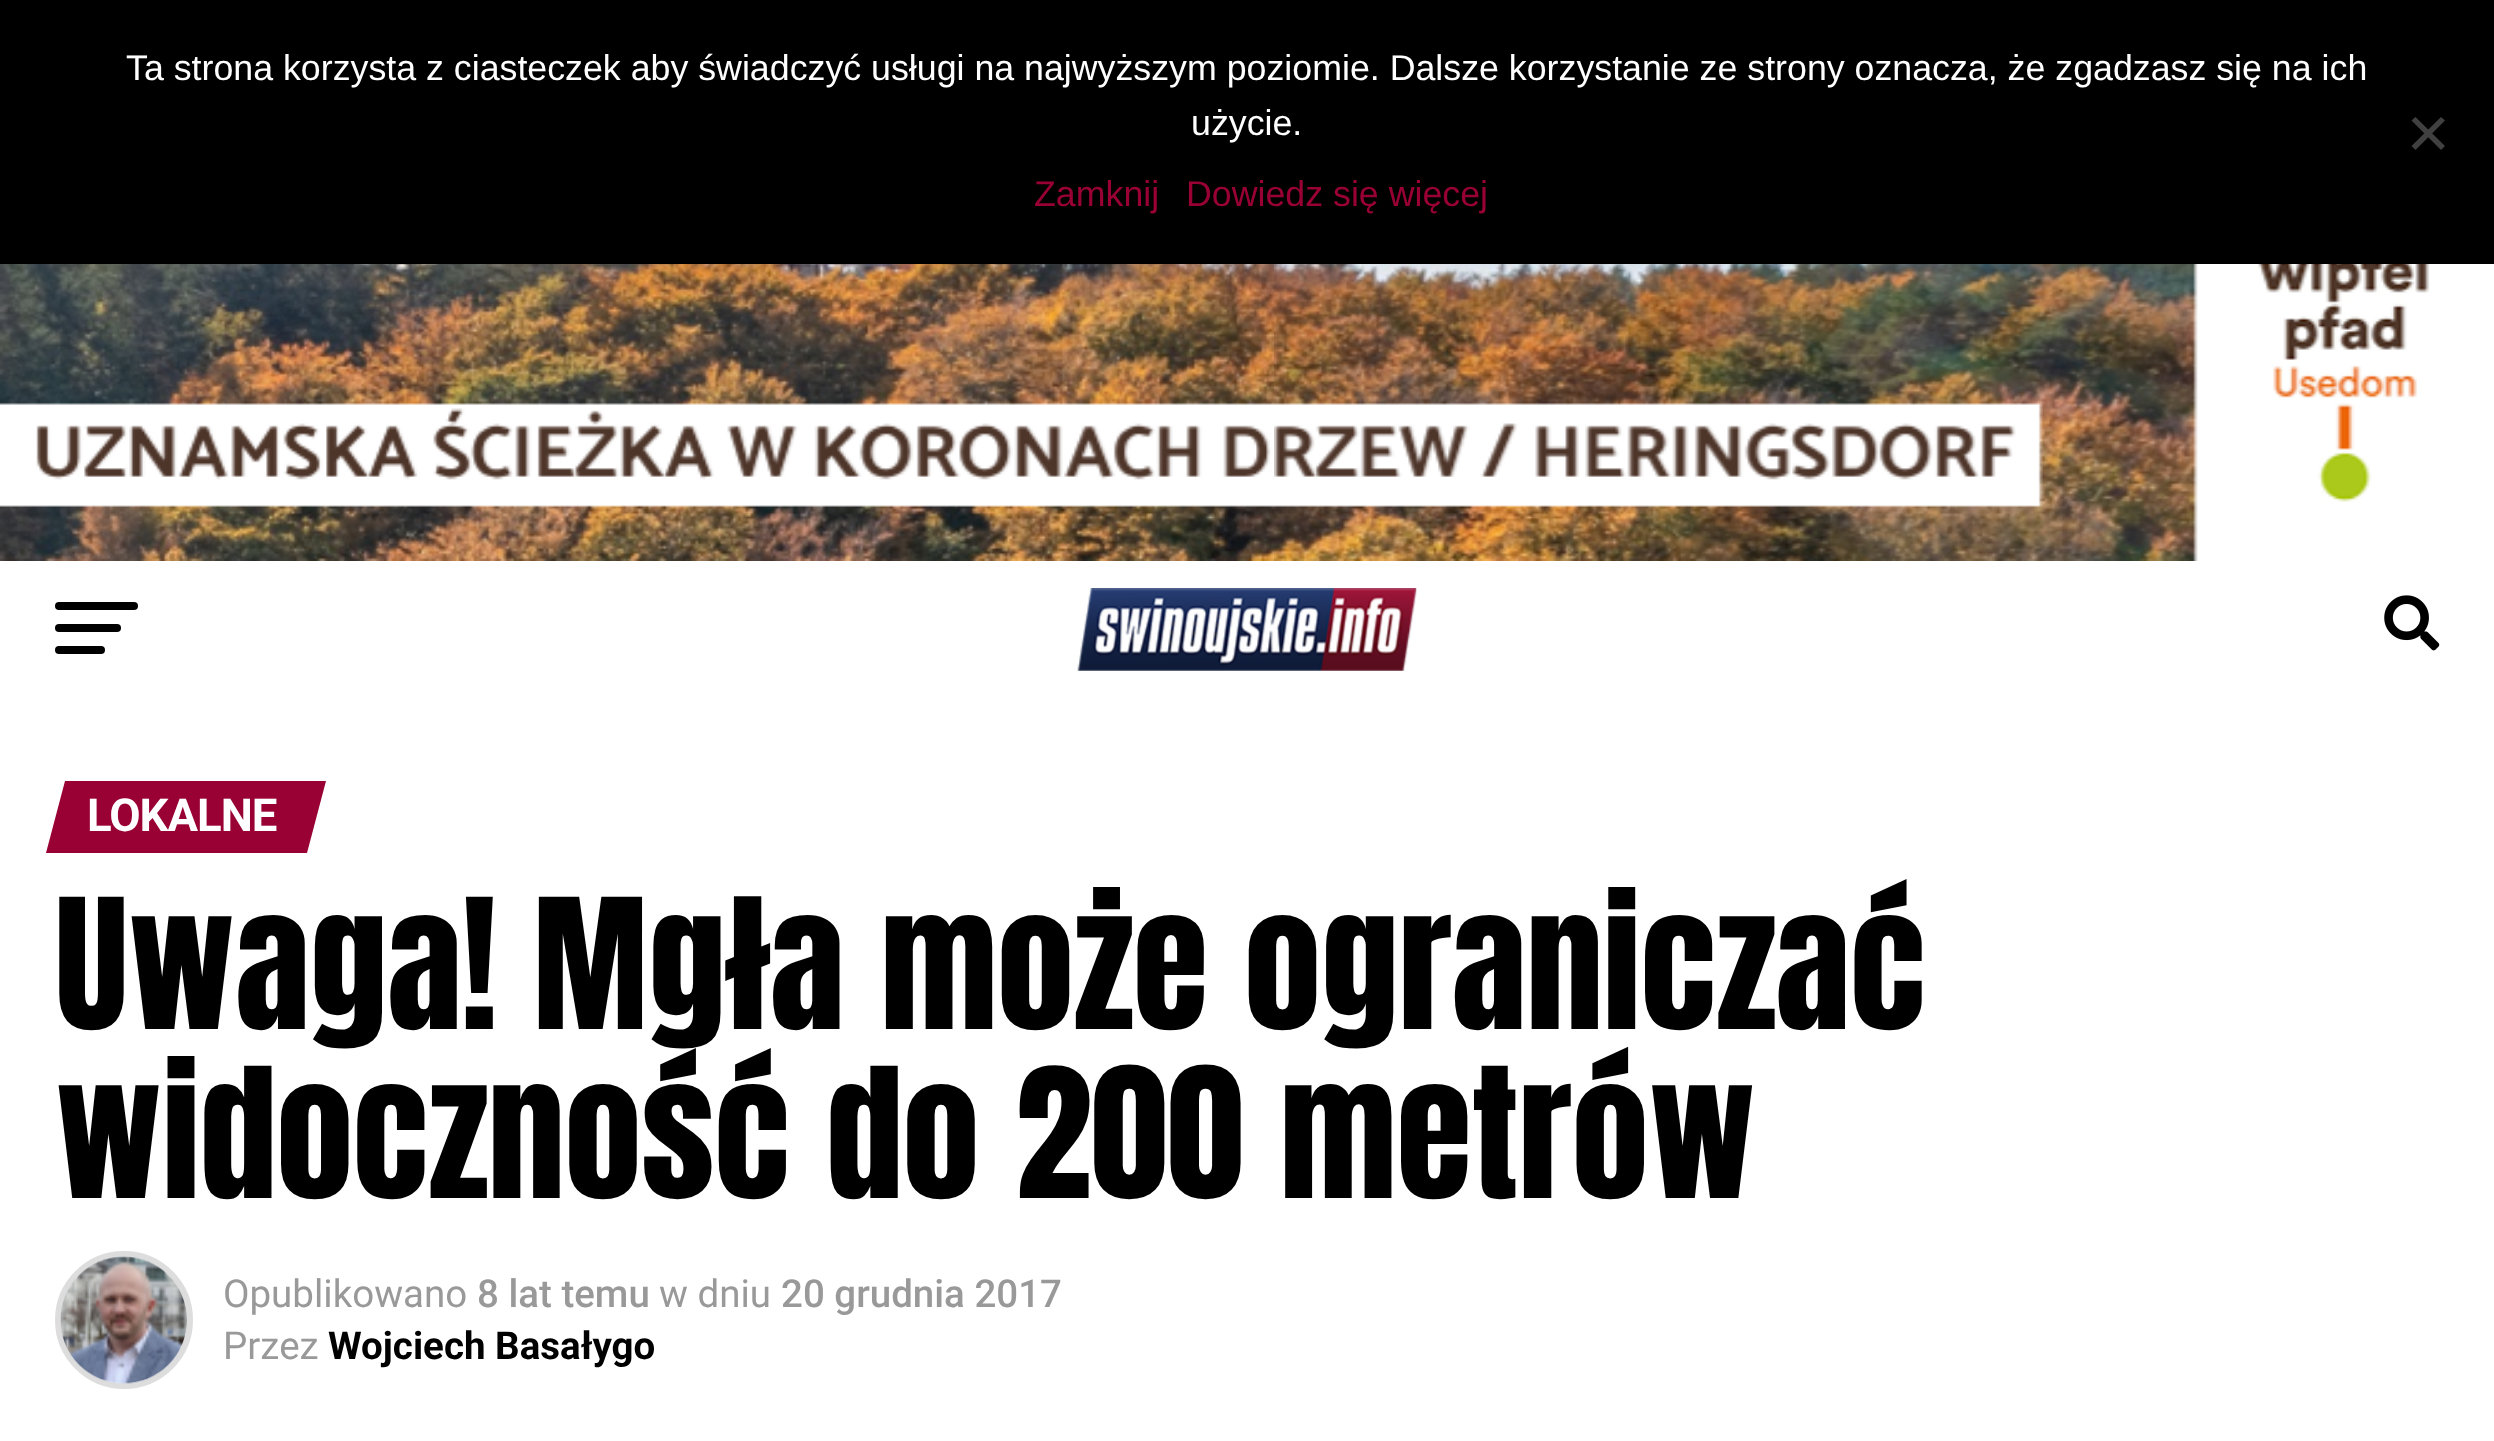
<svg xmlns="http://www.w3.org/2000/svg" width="2494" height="1441">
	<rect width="100%" height="100%" fill="#FFFFFF" />
	<rect x="0" y="0" width="2494" height="264" fill="#000000" />
	<g font-family="Liberation Sans" font-size="35.75" fill="#FFFFFF">
		<text x="126" y="80">Ta strona korzysta z ciasteczek aby świadczyć usługi na najwyższym poziomie. Dalsze korzystanie ze strony oznacza, że zgadzasz się na ich</text>
		<text x="1191" y="135">użycie.</text>
	</g>
	<path d="M2441 117L2445 120.5L2415.5 150L2411.5 146Z" fill="#404040" />
	<path d="M2411.5 120.5L2415.5 117L2445 146L2441 150Z" fill="#404040" />
	<g font-family="Liberation Sans" font-size="35.75" fill="#990033">
		<text x="1034" y="206">Zamknij</text>
		<text x="1186" y="206">Dowiedz się więcej</text>
	</g>
	<image x="0" y="264" width="2430" height="297" href="assets/img1.png" />
	<rect x="55" y="602" width="83" height="8" rx="4" fill="#000000" />
	<rect x="55" y="624" width="66" height="8" rx="4" fill="#000000" />
	<rect x="55" y="646" width="50" height="8" rx="4" fill="#000000" />
	<image x="1077" y="588" width="340" height="83" href="assets/img2.png" />
	<image x="2384" y="595" width="56" height="56" href="assets/img3.png" />
	<path d="M65 781H326L307 853H46Z" fill="#990033" />
	<text x="87" y="831" font-family="Roboto" font-size="45.5" font-weight="700" letter-spacing="-1" fill="#FFFFFF">LOKALNE</text>
	<g font-family="Anton" font-size="154" fill="#000000">
		<text x="55" y="1029">Uwaga! Mgła może ograniczać</text>
		<text x="55" y="1198">widoczność do 200 metrów</text>
	</g>
	<circle cx="124" cy="1320" r="66" fill="none" stroke="#DDDDDD" stroke-width="6" />
	<image x="60" y="1256" width="127" height="128" href="assets/img4.png" />
	<text x="223" y="1307" font-family="Roboto" font-size="38.5" fill="#999999">Opublikowano</text>
	<text x="477" y="1307" font-family="Roboto" font-size="38.5" font-weight="500" fill="#999999">8 lat temu</text>
	<text x="659" y="1307" font-family="Roboto" font-size="38.5" fill="#999999">w dniu</text>
	<text x="781" y="1307" font-family="Roboto" font-size="38.5" font-weight="500" fill="#999999">20 grudnia 2017</text>
	<text x="223" y="1359" font-family="Roboto" font-size="38.5" fill="#999999">Przez</text>
	<text x="328" y="1359" font-family="Roboto" font-size="38.5" font-weight="700" fill="#000000">Wojciech Basałygo</text>
</svg>
